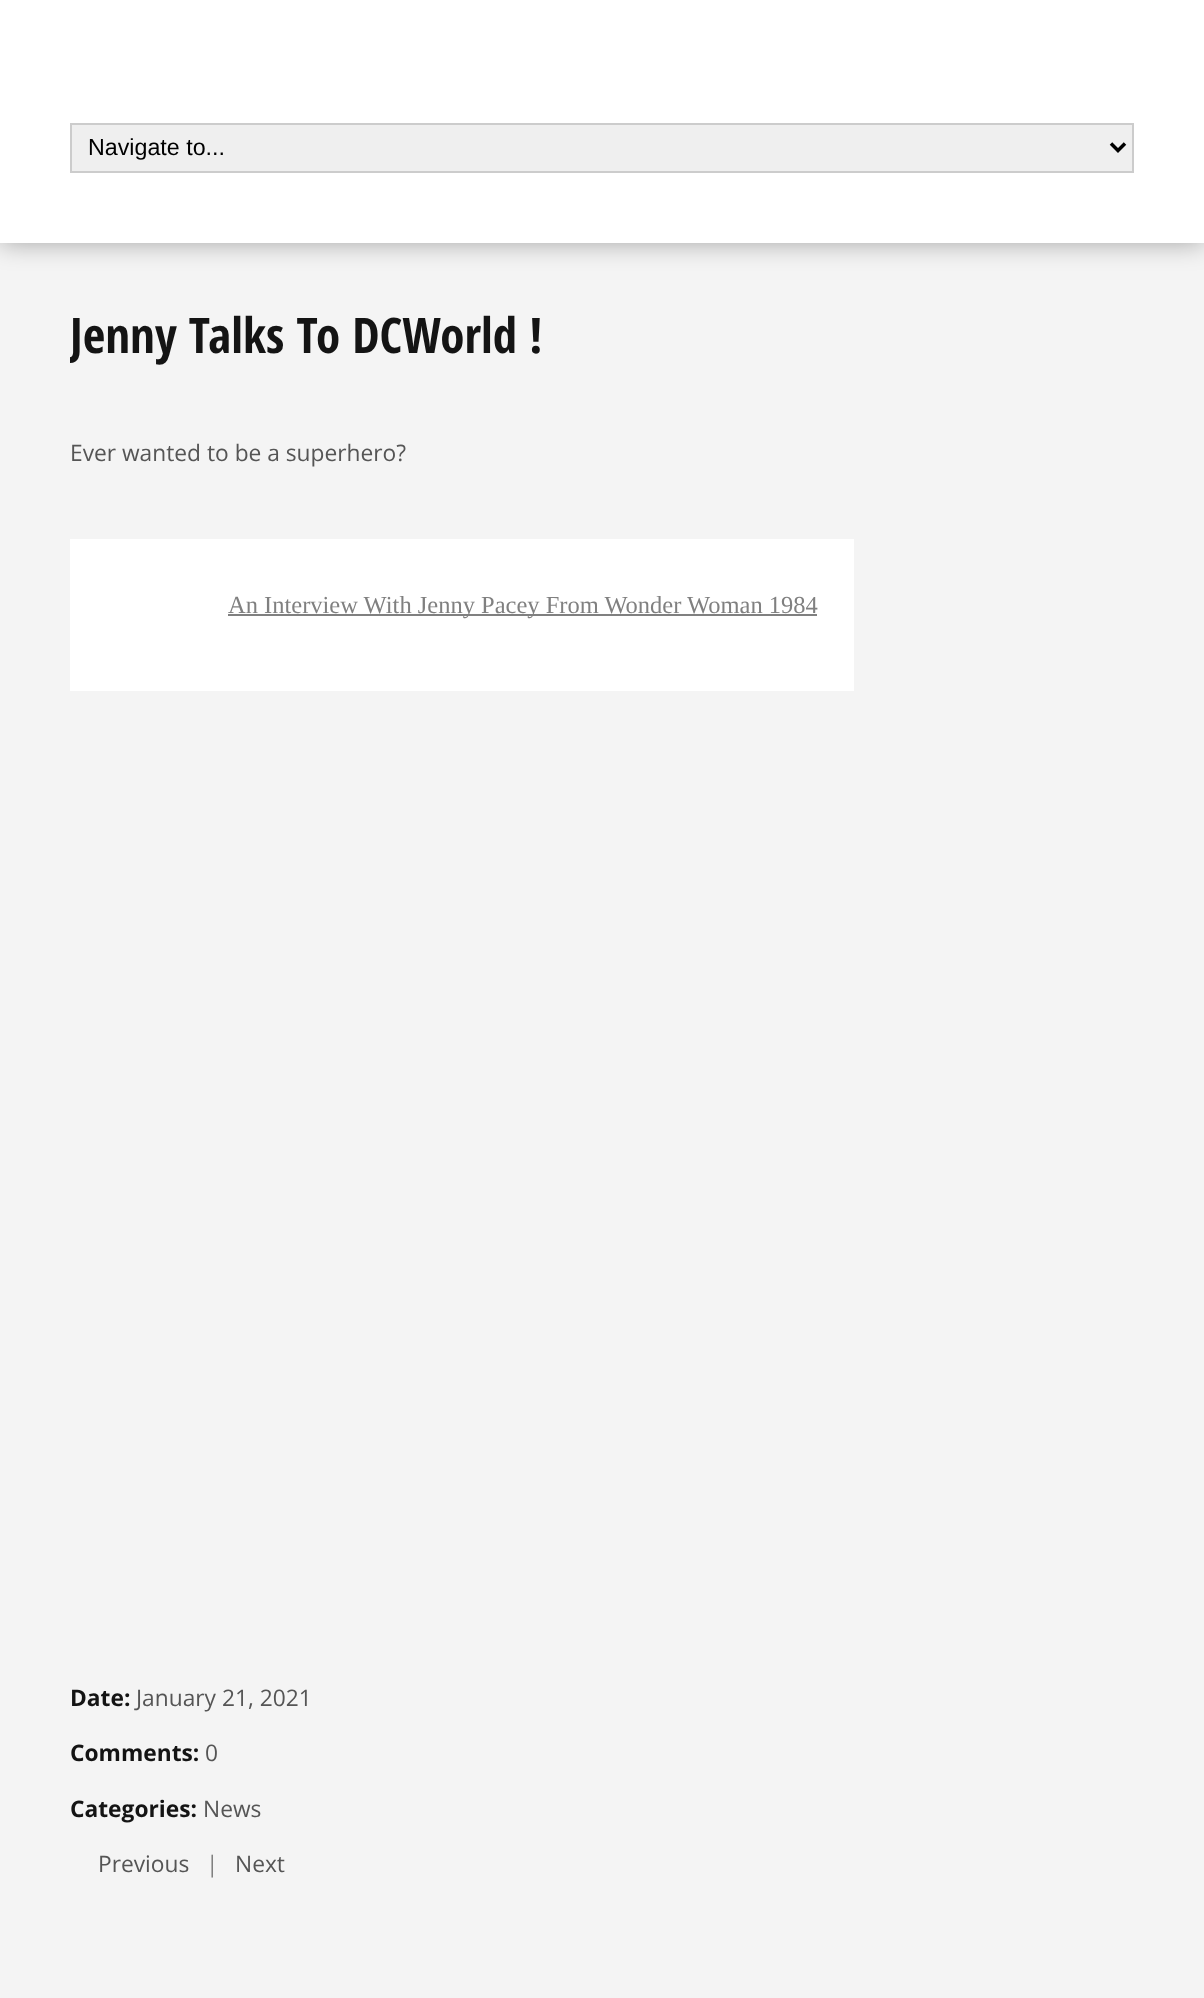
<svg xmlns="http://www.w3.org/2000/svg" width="1204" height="1998">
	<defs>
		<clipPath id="clip1"><rect x="70" y="243" width="1064" height="1378" /></clipPath>
	</defs>
	<rect width="100%" height="100%" fill="#F4F4F4" />
	<rect x="0" y="0" width="1204" height="243" fill="#000000" fill-opacity="0.33" filter="blur(13px)" />
	<rect x="0" y="0" width="1204" height="243" fill="#FFFFFF" />
	<rect x="71" y="124" width="1062" height="48" fill="#EFEFEF" stroke="#CCCCCC" stroke-width="2" />
	<path d="M1111 143.5L1118 150.5L1125 143.5" fill="none" stroke="#000000" stroke-width="3.5" />
	<text x="88" y="155" font-family="Liberation Sans" font-size="23.25" fill="#000000">Navigate to...</text>
	<g clip-path="url(#clip1)">
		<text x="70" y="353" font-family="Open Sans Condensed" font-size="49" font-weight="700" fill="#141414">Jenny Talks To DCWorld !</text>
	</g>
	<text x="70" y="461" font-family="Open Sans" font-size="22.75" fill="#555555">Ever wanted to be a superhero?</text>
	<rect x="70" y="539" width="784" height="152" fill="#FFFFFF" />
	<rect x="228" y="614" width="589" height="2" fill="#808080" />
	<text x="228" y="613" font-family="Liberation Serif" font-size="24.5" fill="#808080">An Interview With Jenny Pacey From Wonder Woman 1984</text>
	<text x="70" y="1706" font-family="Open Sans" font-size="22.75" font-weight="700" fill="#141414">Date:</text>
	<text x="136" y="1706" font-family="Open Sans" font-size="22.75" fill="#555555">January 21, 2021</text>
	<text x="70" y="1761" font-family="Open Sans" font-size="22.75" font-weight="700" fill="#141414">Comments:</text>
	<text x="205" y="1761" font-family="Open Sans" font-size="22.75" fill="#555555">0</text>
	<text x="70" y="1817" font-family="Open Sans" font-size="22.75" font-weight="700" fill="#141414">Categories:</text>
	<g font-family="Open Sans" font-size="22.75" fill="#555555">
		<text x="203" y="1817">News</text>
		<text x="98" y="1872">Previous</text>
	</g>
	<text x="206" y="1872" font-family="Open Sans" font-size="22.75" fill="#808080">|</text>
	<text x="235" y="1872" font-family="Open Sans" font-size="22.75" fill="#555555">Next</text>
</svg>
